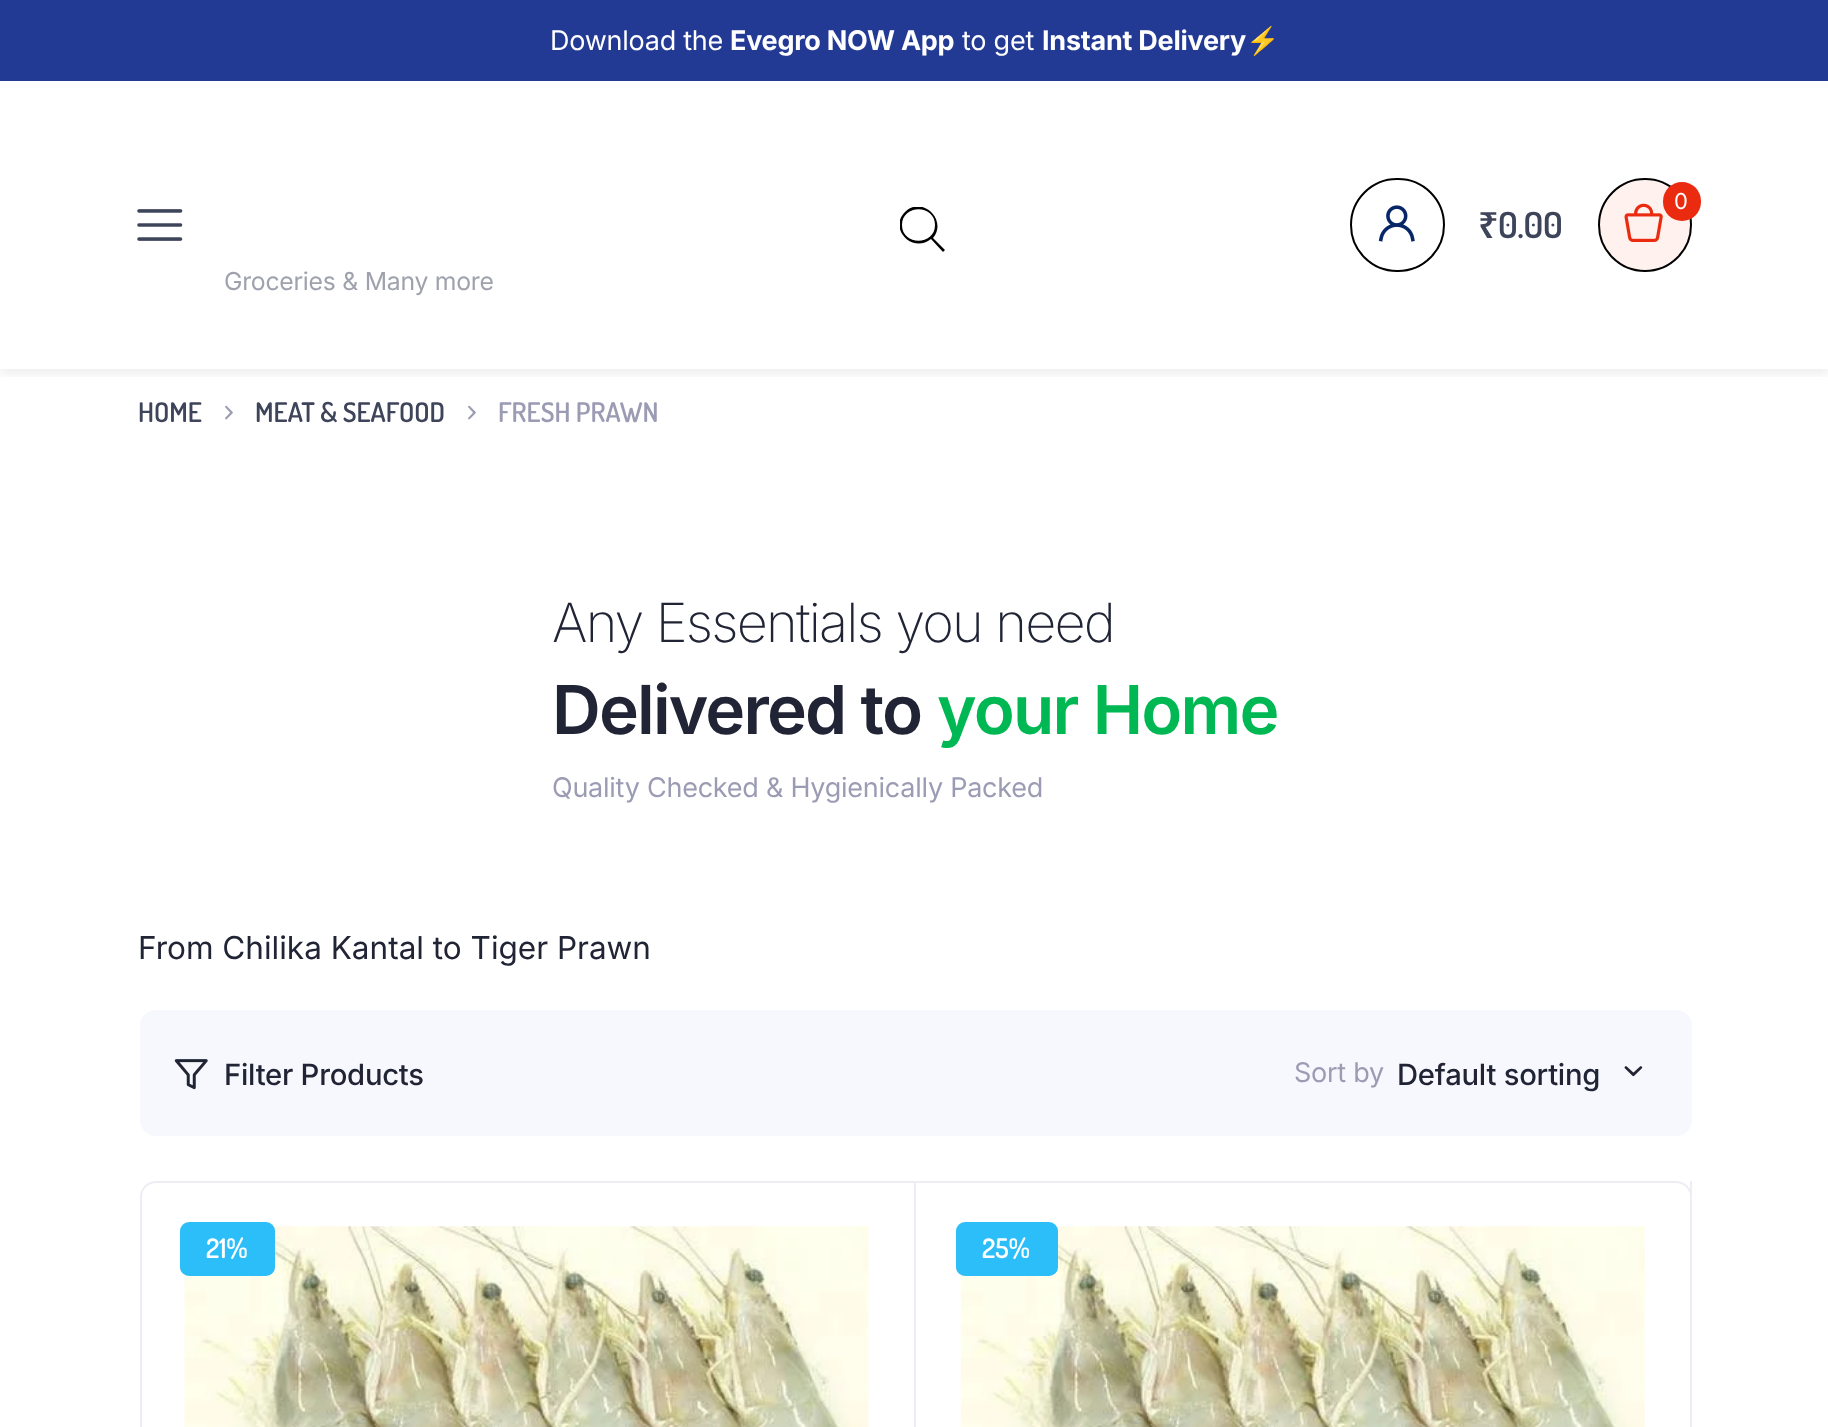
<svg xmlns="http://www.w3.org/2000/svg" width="1828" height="1427">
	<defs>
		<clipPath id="clip1"><rect x="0" y="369" width="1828" height="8" /></clipPath>
		<clipPath id="clip2"><rect x="900" y="207" width="45" height="45" /></clipPath>
	</defs>
	<rect width="100%" height="100%" fill="#FFFFFF" />
	<rect x="0" y="0" width="1828" height="81" fill="#233A95" />
	<text x="550" y="50" font-family="Inter" font-size="27" letter-spacing="-0.25" fill="#FFFFFF">Download the</text>
	<text x="730" y="50" font-family="Inter" font-size="27" font-weight="700" letter-spacing="-0.25" fill="#FFFFFF">Evegro NOW App</text>
	<text x="962" y="50" font-family="Inter" font-size="27" letter-spacing="-0.25" fill="#FFFFFF">to get</text>
	<text x="1042" y="50" font-family="Inter" font-size="27" font-weight="700" letter-spacing="-0.25" fill="#FFFFFF">Instant Delivery</text>
	<text x="1246" y="50" font-family="Noto Color Emoji" font-size="27" letter-spacing="-0.25" fill="#FFFFFF">⚡️</text>
	<g clip-path="url(#clip1)">
		<rect x="0" y="86" width="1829" height="288" fill="#000000" fill-opacity="0.07" filter="blur(5.5px)" />
	</g>
	<g clip-path="url(#clip2)">
		<path d="M945 250L933 238C948 220 922 195 905 212C888 229 913 254 931 239L943 252ZM902 225C902 204 935 204 935 225C935 246 902 246 902 225Z" fill="#000000" />
	</g>
	<rect x="1351" y="179" width="93" height="92" rx="46" fill="none" stroke="#000000" stroke-width="2" />
	<image x="1378" y="205" width="37" height="37" href="assets/img1.png" />
	<circle cx="1645" cy="225" r="46" fill="#FFF1EE" stroke="#000000" stroke-width="2" />
	<image x="1624" y="203" width="39" height="39" href="assets/img2.png" />
	<rect x="1663" y="182" width="38" height="39" rx="19" fill="#EA2B0F" />
	<text x="1674" y="209" font-family="Inter" font-size="22" letter-spacing="-0.25" fill="#FFFFFF">0</text>
	<text x="1478" y="238" font-family="Noto Sans" font-size="36" font-weight="600" letter-spacing="-0.25" fill="#3E445A">₹</text>
	<text x="1498" y="238" font-family="Dosis" font-size="36" font-weight="600" letter-spacing="-0.25" fill="#3E445A">0.00</text>
	<image x="137" y="209" width="46" height="32" href="assets/img3.png" />
	<text x="224" y="290" font-family="Inter" font-size="24.75" letter-spacing="-0.25" fill="#9FA2AD">Groceries &amp; Many more</text>
	<text x="138" y="422" font-family="Dosis" font-size="27" font-weight="600" fill="#3E445A">HOME</text>
	<image x="225" y="405" width="8" height="15" href="assets/img4.png" />
	<text x="255" y="422" font-family="Dosis" font-size="27" font-weight="600" fill="#3E445A">MEAT &amp; SEAFOOD</text>
	<image x="468" y="405" width="8" height="15" href="assets/img4.png" />
	<text x="498" y="422" font-family="Dosis" font-size="27" font-weight="600" fill="#9B9BB4">FRESH PRAWN</text>
	<text x="552" y="642" font-family="Inter" font-size="54" font-weight="200" letter-spacing="-1.8" fill="#202435">Any Essentials you need</text>
	<text x="552" y="734" font-family="Inter" font-size="67.5" font-weight="600" letter-spacing="-1.8" fill="#202435">Delivered to</text>
	<text x="937" y="734" font-family="Inter" font-size="67.5" font-weight="600" letter-spacing="-1.8" fill="#00B853">your Home</text>
	<text x="552" y="797" font-family="Inter" font-size="27" letter-spacing="-0.25" fill="#9B9BB4">Quality Checked &amp; Hygienically Packed</text>
	<text x="138" y="959" font-family="Inter" font-size="31.5" fill="#202435">From Chilika Kantal to Tiger Prawn</text>
	<rect x="140" y="1010" width="1552" height="126" rx="16" fill="#F7F8FD" />
	<image x="174" y="1059" width="34" height="31" href="assets/img5.png" />
	<text x="224" y="1085" font-family="Inter" font-size="29.25" font-weight="500" letter-spacing="-0.25" fill="#202435">Filter Products</text>
	<text x="1294" y="1082" font-family="Inter" font-size="27" letter-spacing="-0.25" fill="#9B9BB4">Sort by</text>
	<text x="1397" y="1085" font-family="Inter" font-size="29.25" font-weight="500" letter-spacing="-0.25" fill="#202435">Default sorting</text>
	<image x="1624" y="1066" width="19" height="11" href="assets/img6.png" />
	<rect x="141" y="1182" width="1550" height="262" rx="15" fill="none" stroke="#EDEEF5" stroke-width="2" />
	<rect x="914" y="1181" width="2" height="246" fill="#EDEEF5" />
	<image x="184" y="1226" width="685" height="201" href="assets/img7.png" />
	<rect x="180" y="1222" width="95" height="54" rx="9" fill="#2BBEF9" />
	<text x="206" y="1258" font-family="Dosis" font-size="27" font-weight="600" fill="#FFFFFF">21%</text>
	<rect x="1690" y="1181" width="2" height="14" fill="#EDEEF5" />
	<image x="960" y="1226" width="685" height="201" href="assets/img8.png" />
	<rect x="956" y="1222" width="102" height="54" rx="9" fill="#2BBEF9" />
	<text x="982" y="1258" font-family="Dosis" font-size="27" font-weight="600" fill="#FFFFFF">25%</text>
</svg>
